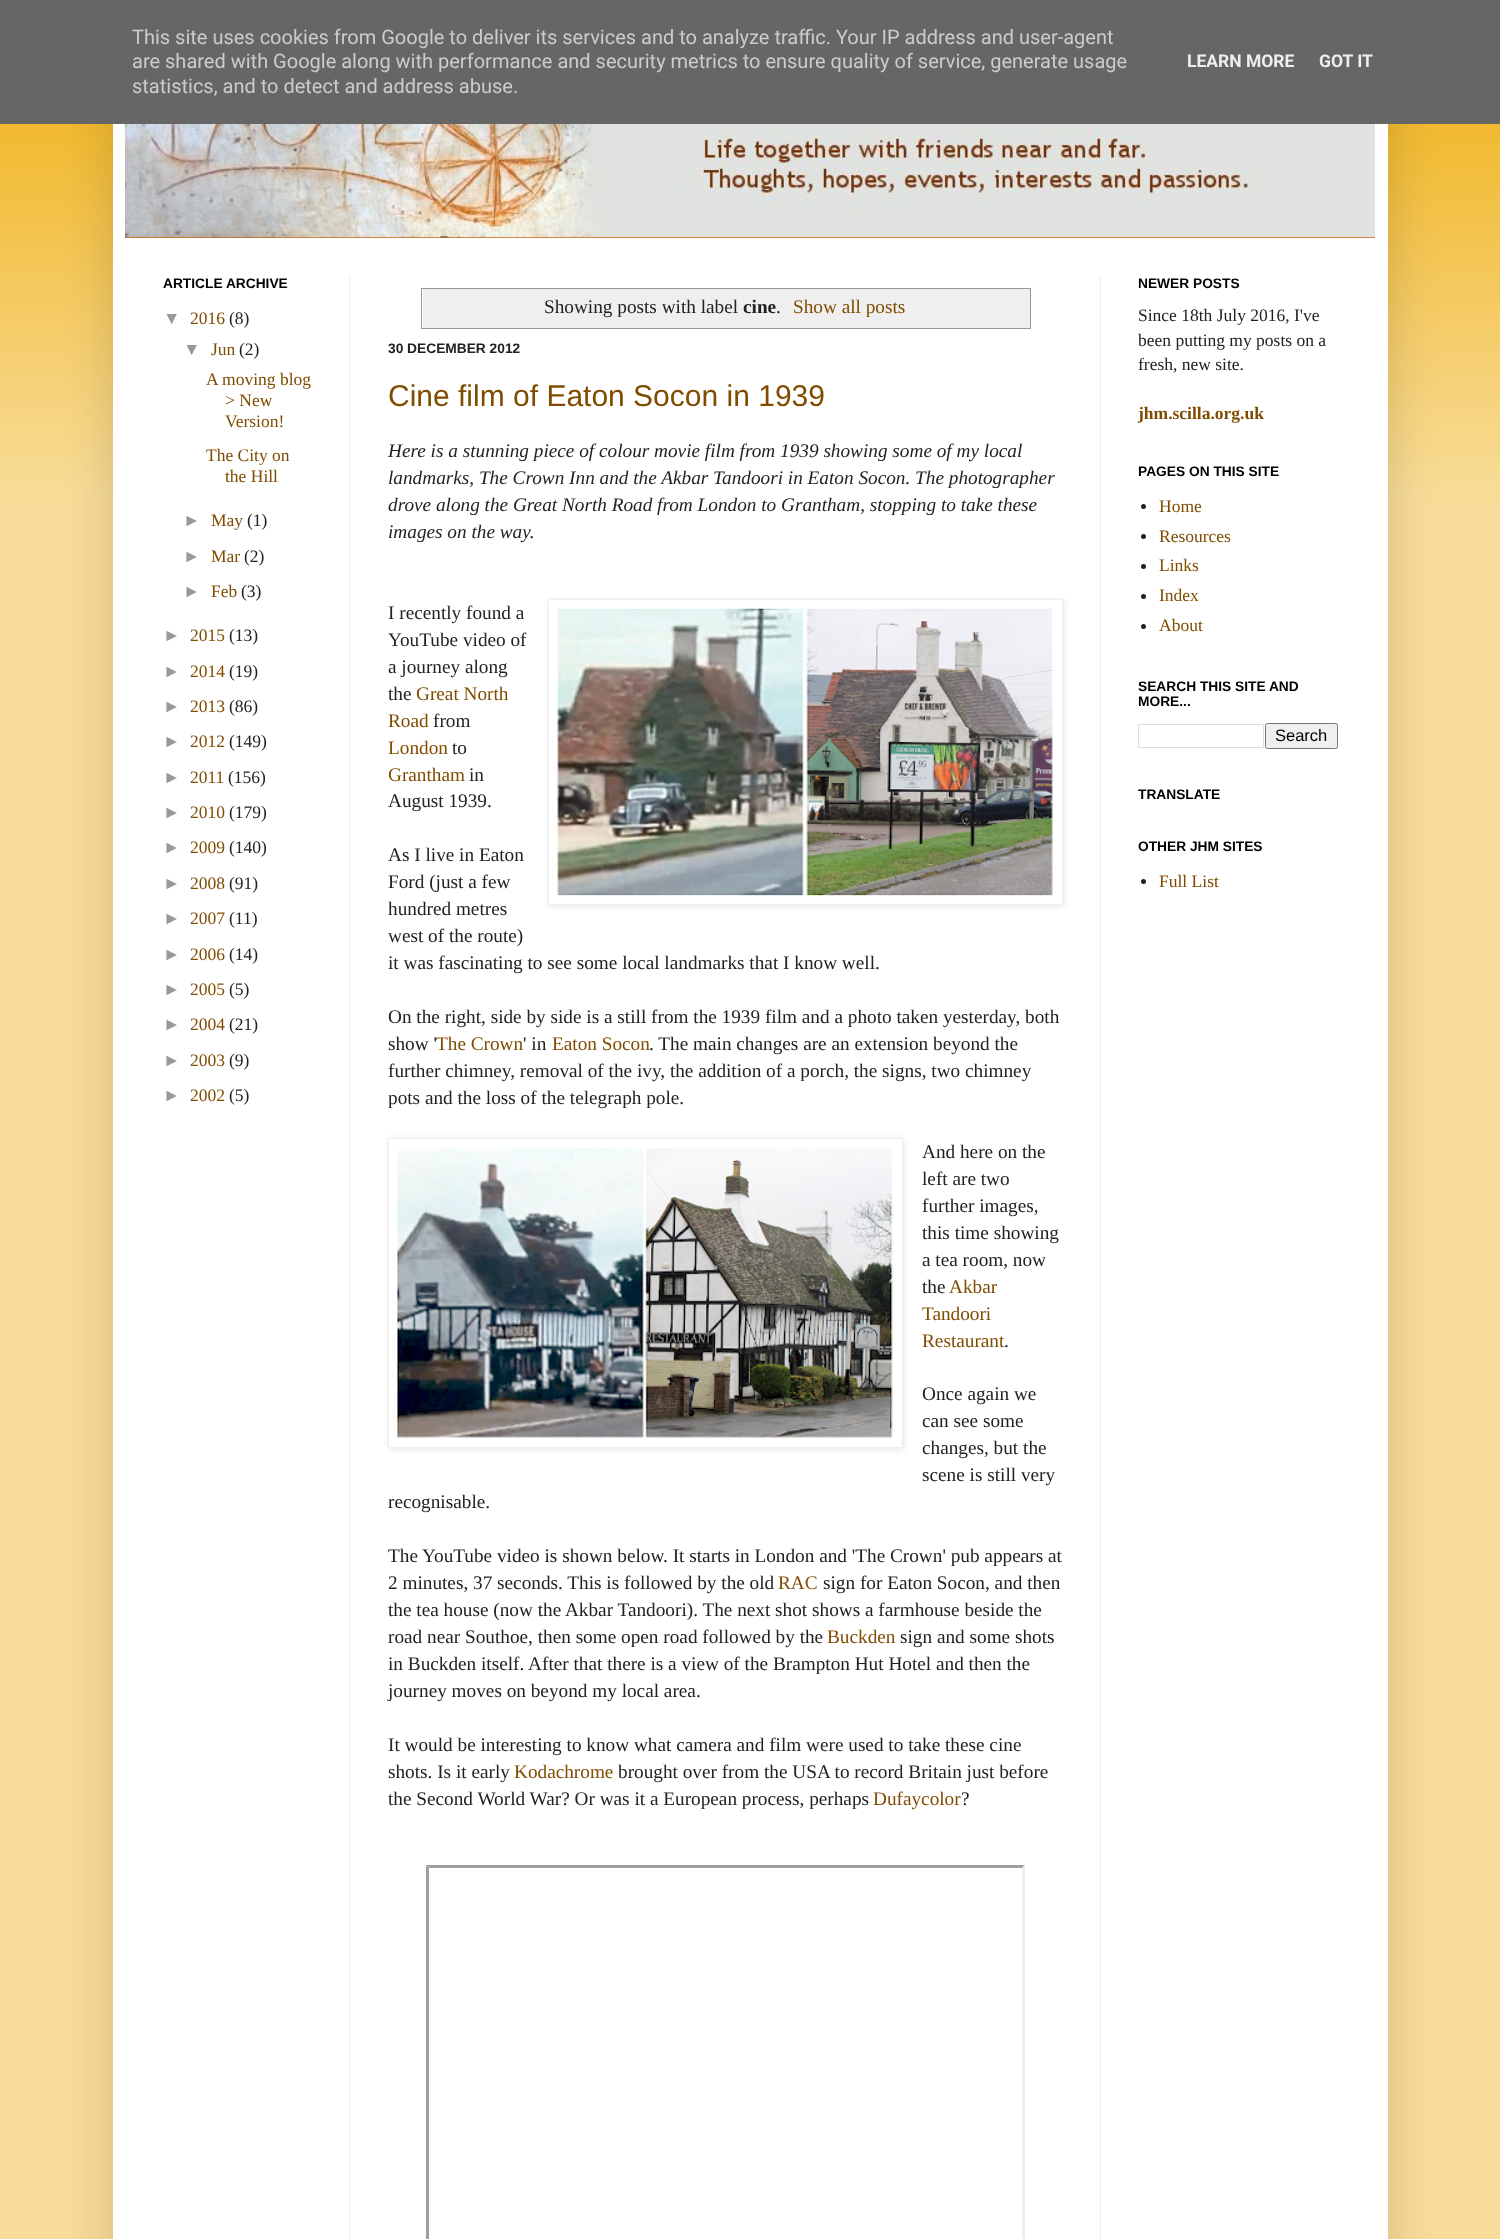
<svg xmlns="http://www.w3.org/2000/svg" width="1500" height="2239">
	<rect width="100%" height="100%" fill="#F9DC99" />
	<rect x="0" y="124" width="1500" height="376" fill="#EEAA00" />
	<image x="0" y="124" width="1500" height="376" href="assets/img1.png" />
	<rect x="113" y="38" width="1275" height="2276" fill="#000000" fill-opacity="0.15" filter="blur(25px)" />
	<rect x="0" y="0" width="1500" height="124" fill="#666666" />
	<g font-family="Roboto" font-size="20" fill="#CCCCCC">
		<text x="132" y="44">This site uses cookies from Google to deliver its services and to analyze traffic. Your IP address and user-agent</text>
		<text x="132" y="68">are shared with Google along with performance and security metrics to ensure quality of service, generate usage</text>
		<text x="132" y="93">statistics, and to detect and address abuse.</text>
	</g>
	<g font-family="Roboto" font-size="17.5" font-weight="700" fill="#EEEEEE">
		<text x="1187" y="67">LEARN MORE</text>
		<text x="1319" y="67">GOT IT</text>
	</g>
	<rect x="113" y="124" width="1275" height="2115" fill="#FFFFFF" />
	<rect x="125" y="237" width="1250" height="1" fill="#CC6611" />
	<image x="125" y="124" width="1250" height="114" href="assets/img2.png" />
	<rect x="349" y="275" width="1" height="1964" fill="#EEEEEE" />
	<rect x="1100" y="275" width="1" height="1964" fill="#EEEEEE" />
	<text x="163" y="288" font-family="Liberation Sans" font-size="13.75" font-weight="700" fill="#000000">ARTICLE ARCHIVE</text>
	<text x="163" y="324" font-family="Liberation Sans" font-size="17.5" fill="#999999">▼</text>
	<text x="190" y="324" font-family="Liberation Serif" font-size="17.5" fill="#7F4C00">2016</text>
	<text x="229" y="324" font-family="Liberation Serif" font-size="17.5" fill="#222222">(8)</text>
	<text x="183" y="355" font-family="Liberation Sans" font-size="17.5" fill="#999999">▼</text>
	<text x="211" y="355" font-family="Liberation Serif" font-size="17.5" fill="#7F4C00">Jun</text>
	<text x="239" y="355" font-family="Liberation Serif" font-size="17.5" fill="#222222">(2)</text>
	<g font-family="Liberation Serif" font-size="17.5" fill="#7F4C00">
		<text x="206" y="385">A moving blog</text>
		<text x="225" y="406">&gt; New</text>
		<text x="225" y="427">Version!</text>
		<text x="206" y="461">The City on</text>
		<text x="225" y="482">the Hill</text>
	</g>
	<text x="183" y="526" font-family="Liberation Sans" font-size="17.5" fill="#999999">►</text>
	<text x="211" y="526" font-family="Liberation Serif" font-size="17.5" fill="#7F4C00">May</text>
	<text x="247" y="526" font-family="Liberation Serif" font-size="17.5" fill="#222222">(1)</text>
	<text x="183" y="562" font-family="Liberation Sans" font-size="17.5" fill="#999999">►</text>
	<text x="211" y="562" font-family="Liberation Serif" font-size="17.5" fill="#7F4C00">Mar</text>
	<text x="244" y="562" font-family="Liberation Serif" font-size="17.5" fill="#222222">(2)</text>
	<text x="183" y="597" font-family="Liberation Sans" font-size="17.5" fill="#999999">►</text>
	<text x="211" y="597" font-family="Liberation Serif" font-size="17.5" fill="#7F4C00">Feb</text>
	<text x="241" y="597" font-family="Liberation Serif" font-size="17.5" fill="#222222">(3)</text>
	<text x="163" y="641" font-family="Liberation Sans" font-size="17.5" fill="#999999">►</text>
	<text x="190" y="641" font-family="Liberation Serif" font-size="17.5" fill="#7F4C00">2015</text>
	<text x="229" y="641" font-family="Liberation Serif" font-size="17.5" fill="#222222">(13)</text>
	<text x="163" y="677" font-family="Liberation Sans" font-size="17.5" fill="#999999">►</text>
	<text x="190" y="677" font-family="Liberation Serif" font-size="17.5" fill="#7F4C00">2014</text>
	<text x="229" y="677" font-family="Liberation Serif" font-size="17.5" fill="#222222">(19)</text>
	<text x="163" y="712" font-family="Liberation Sans" font-size="17.5" fill="#999999">►</text>
	<text x="190" y="712" font-family="Liberation Serif" font-size="17.5" fill="#7F4C00">2013</text>
	<text x="229" y="712" font-family="Liberation Serif" font-size="17.5" fill="#222222">(86)</text>
	<text x="163" y="747" font-family="Liberation Sans" font-size="17.5" fill="#999999">►</text>
	<text x="190" y="747" font-family="Liberation Serif" font-size="17.5" fill="#7F4C00">2012</text>
	<text x="229" y="747" font-family="Liberation Serif" font-size="17.5" fill="#222222">(149)</text>
	<text x="163" y="783" font-family="Liberation Sans" font-size="17.5" fill="#999999">►</text>
	<text x="190" y="783" font-family="Liberation Serif" font-size="17.5" fill="#7F4C00">2011</text>
	<text x="228" y="783" font-family="Liberation Serif" font-size="17.5" fill="#222222">(156)</text>
	<text x="163" y="818" font-family="Liberation Sans" font-size="17.5" fill="#999999">►</text>
	<text x="190" y="818" font-family="Liberation Serif" font-size="17.5" fill="#7F4C00">2010</text>
	<text x="229" y="818" font-family="Liberation Serif" font-size="17.5" fill="#222222">(179)</text>
	<text x="163" y="853" font-family="Liberation Sans" font-size="17.5" fill="#999999">►</text>
	<text x="190" y="853" font-family="Liberation Serif" font-size="17.5" fill="#7F4C00">2009</text>
	<text x="229" y="853" font-family="Liberation Serif" font-size="17.5" fill="#222222">(140)</text>
	<text x="163" y="889" font-family="Liberation Sans" font-size="17.5" fill="#999999">►</text>
	<text x="190" y="889" font-family="Liberation Serif" font-size="17.5" fill="#7F4C00">2008</text>
	<text x="229" y="889" font-family="Liberation Serif" font-size="17.5" fill="#222222">(91)</text>
	<text x="163" y="924" font-family="Liberation Sans" font-size="17.5" fill="#999999">►</text>
	<text x="190" y="924" font-family="Liberation Serif" font-size="17.5" fill="#7F4C00">2007</text>
	<text x="229" y="924" font-family="Liberation Serif" font-size="17.5" fill="#222222">(11)</text>
	<text x="163" y="960" font-family="Liberation Sans" font-size="17.5" fill="#999999">►</text>
	<text x="190" y="960" font-family="Liberation Serif" font-size="17.5" fill="#7F4C00">2006</text>
	<text x="229" y="960" font-family="Liberation Serif" font-size="17.5" fill="#222222">(14)</text>
	<text x="163" y="995" font-family="Liberation Sans" font-size="17.5" fill="#999999">►</text>
	<text x="190" y="995" font-family="Liberation Serif" font-size="17.5" fill="#7F4C00">2005</text>
	<text x="229" y="995" font-family="Liberation Serif" font-size="17.5" fill="#222222">(5)</text>
	<text x="163" y="1030" font-family="Liberation Sans" font-size="17.5" fill="#999999">►</text>
	<text x="190" y="1030" font-family="Liberation Serif" font-size="17.5" fill="#7F4C00">2004</text>
	<text x="229" y="1030" font-family="Liberation Serif" font-size="17.5" fill="#222222">(21)</text>
	<text x="163" y="1066" font-family="Liberation Sans" font-size="17.5" fill="#999999">►</text>
	<text x="190" y="1066" font-family="Liberation Serif" font-size="17.5" fill="#7F4C00">2003</text>
	<text x="229" y="1066" font-family="Liberation Serif" font-size="17.5" fill="#222222">(9)</text>
	<text x="163" y="1101" font-family="Liberation Sans" font-size="17.5" fill="#999999">►</text>
	<text x="190" y="1101" font-family="Liberation Serif" font-size="17.5" fill="#7F4C00">2002</text>
	<text x="229" y="1101" font-family="Liberation Serif" font-size="17.5" fill="#222222">(5)</text>
	<rect x="421.5" y="288.5" width="609" height="40" fill="none" stroke="#999999" />
	<rect x="423" y="289" width="607" height="39" fill="#EFEFEF" />
	<text x="544" y="313" font-family="Liberation Serif" font-size="19.25" fill="#222222">Showing posts with label</text>
	<text x="743" y="313" font-family="Liberation Serif" font-size="19.25" font-weight="700" fill="#222222">cine</text>
	<text x="776" y="313" font-family="Liberation Serif" font-size="19.25" fill="#222222">.</text>
	<text x="793" y="313" font-family="Liberation Serif" font-size="19.25" fill="#7F4C00">Show all posts</text>
	<text x="388" y="353" font-family="Liberation Sans" font-size="13.75" font-weight="700" fill="#222222">30 DECEMBER 2012</text>
	<text x="388" y="406" font-family="Liberation Sans" font-size="30" fill="#7F4C00">Cine film of Eaton Socon in 1939</text>
	<g font-family="Liberation Serif" font-size="19.25" font-style="italic" fill="#222222">
		<text x="388" y="457">Here is a stunning piece of colour movie film from 1939 showing some of my local</text>
		<text x="388" y="484">landmarks, The Crown Inn and the Akbar Tandoori in Eaton Socon. The photographer</text>
		<text x="388" y="511">drove along the Great North Road from London to Grantham, stopping to take these</text>
		<text x="388" y="538">images on the way.</text>
	</g>
	<text x="388" y="619" font-family="Liberation Serif" font-size="19.25" fill="#222222">I recently found a</text>
	<rect x="549" y="600" width="515" height="306" fill="#000000" fill-opacity="0.1" filter="blur(3px)" />
	<rect x="548.5" y="599.5" width="514" height="305" fill="#FFFFFF" stroke="#EEEEEE" />
	<image x="557" y="608" width="496" height="288" href="assets/img3.png" />
	<g font-family="Liberation Serif" font-size="19.25" fill="#222222">
		<text x="388" y="646">YouTube video of</text>
		<text x="388" y="673">a journey along</text>
		<text x="388" y="700">the</text>
	</g>
	<g font-family="Liberation Serif" font-size="19.25" fill="#7F4C00">
		<text x="416" y="700">Great North</text>
		<text x="388" y="727">Road</text>
	</g>
	<text x="433" y="727" font-family="Liberation Serif" font-size="19.25" fill="#222222">from</text>
	<text x="388" y="754" font-family="Liberation Serif" font-size="19.25" fill="#7F4C00">London</text>
	<text x="452" y="754" font-family="Liberation Serif" font-size="19.25" fill="#222222">to</text>
	<text x="388" y="781" font-family="Liberation Serif" font-size="19.25" fill="#7F4C00">Grantham</text>
	<g font-family="Liberation Serif" font-size="19.25" fill="#222222">
		<text x="469" y="781">in</text>
		<text x="388" y="807">August 1939.</text>
		<text x="388" y="861">As I live in Eaton</text>
		<text x="388" y="888">Ford (just a few</text>
		<text x="388" y="915">hundred metres</text>
		<text x="388" y="942">west of the route)</text>
		<text x="388" y="969">it was fascinating to see some local landmarks that I know well.</text>
		<text x="388" y="1023">On the right, side by side is a still from the 1939 film and a photo taken yesterday, both</text>
		<text x="388" y="1050">show '</text>
	</g>
	<text x="436" y="1050" font-family="Liberation Serif" font-size="19.25" fill="#7F4C00">The Crown</text>
	<text x="523" y="1050" font-family="Liberation Serif" font-size="19.25" fill="#222222">' in</text>
	<text x="552" y="1050" font-family="Liberation Serif" font-size="19.25" fill="#7F4C00">Eaton Socon</text>
	<g font-family="Liberation Serif" font-size="19.25" fill="#222222">
		<text x="649" y="1050">. The main changes are an extension beyond the</text>
		<text x="388" y="1077">further chimney, removal of the ivy, the addition of a porch, the signs, two chimney</text>
		<text x="388" y="1104">pots and the loss of the telegraph pole.</text>
	</g>
	<rect x="389" y="1139" width="515" height="310" fill="#000000" fill-opacity="0.1" filter="blur(3px)" />
	<rect x="388.5" y="1138.5" width="514" height="309" fill="#FFFFFF" stroke="#EEEEEE" />
	<image x="397" y="1148" width="496" height="290" href="assets/img4.png" />
	<g font-family="Liberation Serif" font-size="19.25" fill="#222222">
		<text x="922" y="1158">And here on the</text>
		<text x="922" y="1185">left are two</text>
		<text x="922" y="1212">further images,</text>
		<text x="922" y="1239">this time showing</text>
		<text x="922" y="1266">a tea room, now</text>
		<text x="922" y="1293">the</text>
	</g>
	<g font-family="Liberation Serif" font-size="19.25" fill="#7F4C00">
		<text x="949" y="1293">Akbar</text>
		<text x="922" y="1320">Tandoori</text>
		<text x="922" y="1347">Restaurant</text>
	</g>
	<g font-family="Liberation Serif" font-size="19.25" fill="#222222">
		<text x="1004" y="1347">.</text>
		<text x="922" y="1400">Once again we</text>
		<text x="922" y="1427">can see some</text>
		<text x="922" y="1454">changes, but the</text>
		<text x="922" y="1481">scene is still very</text>
		<text x="388" y="1508">recognisable.</text>
		<text x="388" y="1562">The YouTube video is shown below. It starts in London and 'The Crown' pub appears at</text>
		<text x="388" y="1589">2 minutes, 37 seconds. This is followed by the old</text>
	</g>
	<text x="778" y="1589" font-family="Liberation Serif" font-size="19.25" fill="#7F4C00">RAC</text>
	<g font-family="Liberation Serif" font-size="19.25" fill="#222222">
		<text x="823" y="1589">sign for Eaton Socon, and then</text>
		<text x="388" y="1616">the tea house (now the Akbar Tandoori). The next shot shows a farmhouse beside the</text>
		<text x="388" y="1643">road near Southoe, then some open road followed by the</text>
	</g>
	<text x="827" y="1643" font-family="Liberation Serif" font-size="19.25" fill="#7F4C00">Buckden</text>
	<g font-family="Liberation Serif" font-size="19.25" fill="#222222">
		<text x="900" y="1643">sign and some shots</text>
		<text x="388" y="1670">in Buckden itself. After that there is a view of the Brampton Hut Hotel and then the</text>
		<text x="388" y="1697">journey moves on beyond my local area.</text>
		<text x="388" y="1751">It would be interesting to know what camera and film were used to take these cine</text>
		<text x="388" y="1778">shots. Is it early</text>
	</g>
	<text x="514" y="1778" font-family="Liberation Serif" font-size="19.25" fill="#7F4C00">Kodachrome</text>
	<g font-family="Liberation Serif" font-size="19.25" fill="#222222">
		<text x="618" y="1778">brought over from the USA to record Britain just before</text>
		<text x="388" y="1805">the Second World War? Or was it a European process, perhaps</text>
	</g>
	<text x="873" y="1805" font-family="Liberation Serif" font-size="19.25" fill="#7F4C00">Dufaycolor</text>
	<text x="961" y="1805" font-family="Liberation Serif" font-size="19.25" fill="#222222">?</text>
	<path d="M426 1865H1025L1022 1868H429Z" fill="#9F9F9F" />
	<path d="M426 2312V1865L429 1868V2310Z" fill="#9F9F9F" />
	<path d="M1025 1865V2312L1022 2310V1868Z" fill="#EEEEEE" />
	<text x="1138" y="288" font-family="Liberation Sans" font-size="13.75" font-weight="700" fill="#000000">NEWER POSTS</text>
	<g font-family="Liberation Serif" font-size="17.5" fill="#222222">
		<text x="1138" y="321">Since 18th July 2016, I've</text>
		<text x="1138" y="346">been putting my posts on a</text>
		<text x="1138" y="370">fresh, new site.</text>
	</g>
	<text x="1138" y="419" font-family="Liberation Serif" font-size="17.5" font-weight="700" fill="#7F4C00">jhm.scilla.org.uk</text>
	<text x="1138" y="476" font-family="Liberation Sans" font-size="13.75" font-weight="700" fill="#000000">PAGES ON THIS SITE</text>
	<circle cx="1143.5" cy="506.5" r="2.5" fill="#222222" />
	<text x="1159" y="512" font-family="Liberation Serif" font-size="17.5" fill="#7F4C00">Home</text>
	<circle cx="1143.5" cy="536.5" r="2.5" fill="#222222" />
	<text x="1159" y="542" font-family="Liberation Serif" font-size="17.5" fill="#7F4C00">Resources</text>
	<circle cx="1143.5" cy="566.5" r="2.5" fill="#222222" />
	<text x="1159" y="571" font-family="Liberation Serif" font-size="17.5" fill="#7F4C00">Links</text>
	<circle cx="1143.5" cy="596.5" r="2.5" fill="#222222" />
	<text x="1159" y="601" font-family="Liberation Serif" font-size="17.5" fill="#7F4C00">Index</text>
	<circle cx="1143.5" cy="626.5" r="2.5" fill="#222222" />
	<text x="1159" y="631" font-family="Liberation Serif" font-size="17.5" fill="#7F4C00">About</text>
	<g font-family="Liberation Sans" font-size="13.75" font-weight="700" fill="#000000">
		<text x="1138" y="691">SEARCH THIS SITE AND</text>
		<text x="1138" y="706">MORE...</text>
	</g>
	<rect x="1138.5" y="724.5" width="125" height="23" fill="none" stroke="#DDDDDD" />
	<rect x="1265.5" y="723.5" width="72" height="25" rx="2" fill="#EFEFEF" stroke="#767676" />
	<text x="1275" y="741" font-family="Liberation Sans" font-size="16.5" fill="#000000">Search</text>
	<g font-family="Liberation Sans" font-size="13.75" font-weight="700" fill="#000000">
		<text x="1138" y="799">TRANSLATE</text>
		<text x="1138" y="851">OTHER JHM SITES</text>
	</g>
	<circle cx="1143.5" cy="881.5" r="2.5" fill="#222222" />
	<text x="1159" y="887" font-family="Liberation Serif" font-size="17.5" fill="#7F4C00">Full List</text>
</svg>
